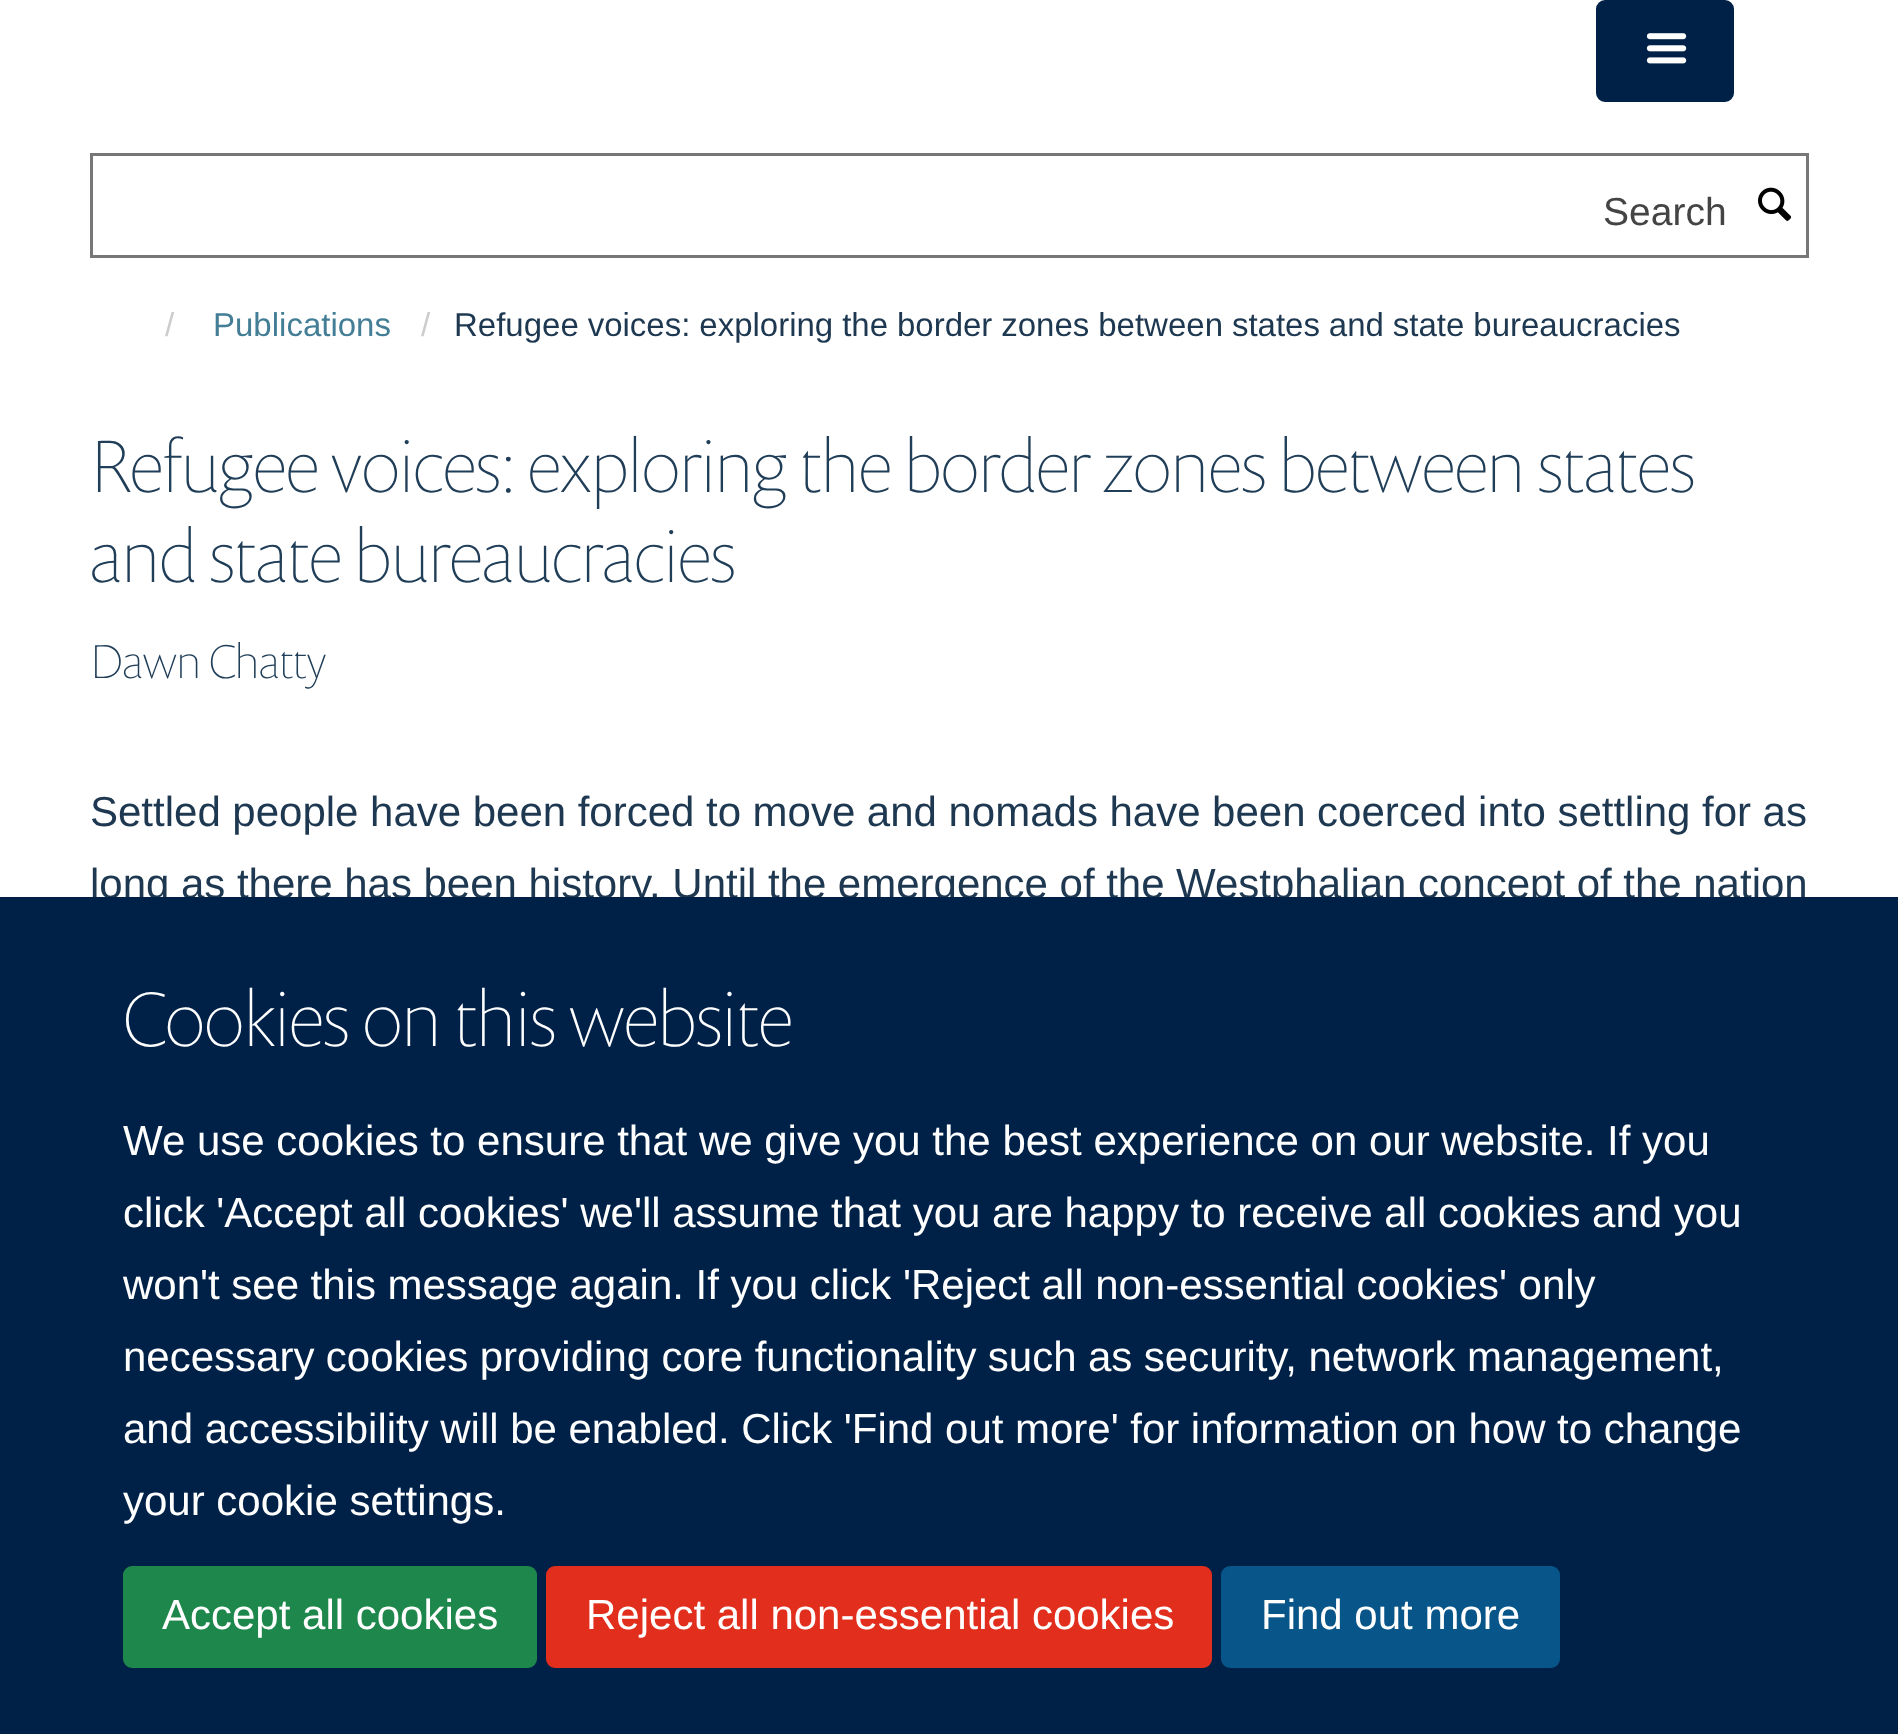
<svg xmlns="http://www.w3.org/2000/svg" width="1898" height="1734">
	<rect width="100%" height="100%" fill="#FFFFFF" />
	<rect x="1597.5" y="1.5" width="135" height="99" rx="7.5" fill="#002147" stroke="#002147" stroke-width="3" />
	<image x="1646" y="33" width="41" height="31" href="assets/img1.png" />
	<rect x="91.5" y="154.5" width="1716" height="102" fill="none" stroke="#777777" stroke-width="3" />
	<text x="1603" y="225" font-family="Liberation Sans" font-size="39" fill="#444444">Search</text>
	<image x="1758" y="187" width="34" height="34" href="assets/img2.png" />
	<text x="165" y="336" font-family="Liberation Sans" font-size="33" fill="#CCCCCC">/</text>
	<text x="213" y="336" font-family="Liberation Sans" font-size="33" fill="#437E96">Publications</text>
	<text x="421" y="336" font-family="Liberation Sans" font-size="33" fill="#CCCCCC">/</text>
	<text x="454" y="336" word-spacing="-0.25" font-family="Liberation Sans" font-size="33" fill="#1D3850">Refugee voices: exploring the border zones between states and state bureaucracies</text>
	<g font-family="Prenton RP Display" font-size="75" font-weight="100" fill="#203E58">
		<text x="90" y="492">Refugee voices: exploring the border zones between states</text>
		<text x="90" y="582">and state bureaucracies</text>
	</g>
	<text x="90" y="678" font-family="Prenton RP Display" font-size="48" font-weight="100" fill="#203E58">Dawn Chatty</text>
	<g font-family="Liberation Sans" font-size="42" fill="#1D3850">
		<text x="90" y="826" word-spacing="-0.1">Settled people have been forced to move and nomads have been coerced into settling for as</text>
		<text x="90" y="898" word-spacing="-0.1">long as there has been history. Until the emergence of the Westphalian concept of the nation</text>
	</g>
	<rect x="0" y="897" width="1898" height="837" fill="#002147" />
	<text x="123" y="1046" font-family="Prenton RP Display" font-size="78" font-weight="100" fill="#FFFFFF">Cookies on this website</text>
	<g font-family="Liberation Sans" font-size="42" fill="#FFFFFF">
		<text x="123" y="1155">We use cookies to ensure that we give you the best experience on our website. If you</text>
		<text x="123" y="1227">click 'Accept all cookies' we'll assume that you are happy to receive all cookies and you</text>
		<text x="123" y="1299" word-spacing="-0.1">won't see this message again. If you click 'Reject all non-essential cookies' only</text>
		<text x="123" y="1371" word-spacing="-0.25">necessary cookies providing core functionality such as security, network management,</text>
		<text x="123" y="1443" word-spacing="-0.1">and accessibility will be enabled. Click 'Find out more' for information on how to change</text>
		<text x="123" y="1515">your cookie settings.</text>
	</g>
	<rect x="124.5" y="1567.5" width="411" height="99" rx="7.5" fill="#1E874B" stroke="#1E874B" stroke-width="3" />
	<text x="162" y="1629" font-family="Liberation Sans" font-size="42" fill="#FFFFFF">Accept all cookies</text>
	<rect x="547.5" y="1567.5" width="663" height="99" rx="7.5" fill="#E22E1C" stroke="#E22E1C" stroke-width="3" />
	<text x="586" y="1629" font-family="Liberation Sans" font-size="42" fill="#FFFFFF">Reject all non-essential cookies</text>
	<rect x="1222.5" y="1567.5" width="336" height="99" rx="7.5" fill="#085589" stroke="#085589" stroke-width="3" />
	<text x="1261" y="1629" font-family="Liberation Sans" font-size="42" fill="#FFFFFF">Find out more</text>
</svg>
